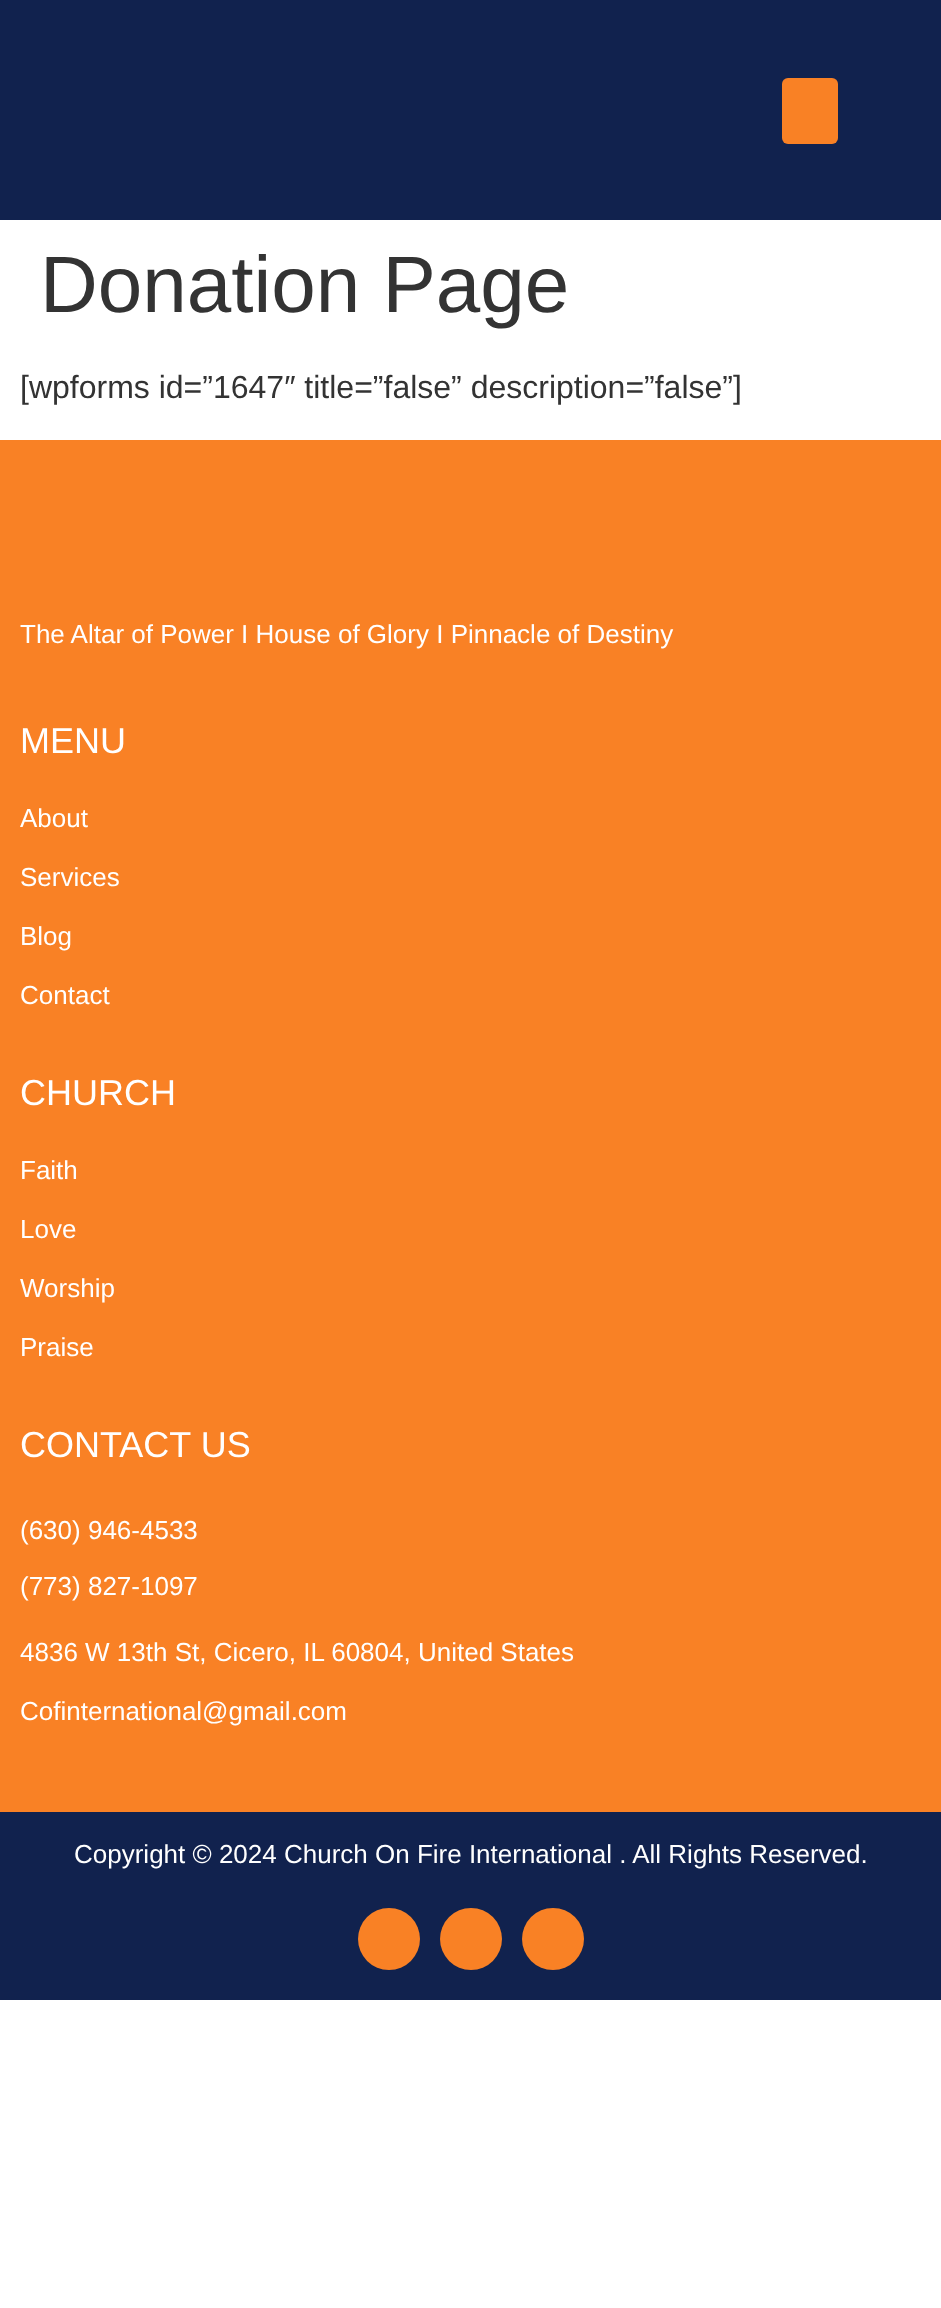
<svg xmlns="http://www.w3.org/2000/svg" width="941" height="2308">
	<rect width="100%" height="100%" fill="#FFFFFF" />
	<rect x="0" y="0" width="941" height="220" fill="#11224E" />
	<rect x="782" y="78" width="56" height="66" rx="6" fill="#F98125" />
	<text x="40" y="312" font-family="Liberation Sans" font-size="80" fill="#333333">Donation Page</text>
	<text x="20" y="398" font-family="Liberation Sans" font-size="32" fill="#333333">[wpforms id=”1647″ title=”false” description=”false”]</text>
	<rect x="0" y="440" width="941" height="1372" fill="#F98125" />
	<text x="20" y="643" font-family="Liberation Sans" font-size="26" fill="#FFFFFF">The Altar of Power I House of Glory I Pinnacle of Destiny</text>
	<text x="20" y="753" font-family="Liberation Sans" font-size="36" fill="#FFFFFF">MENU</text>
	<g font-family="Liberation Sans" font-size="26" fill="#FFFFFF">
		<text x="20" y="827">About</text>
		<text x="20" y="886">Services</text>
		<text x="20" y="945">Blog</text>
		<text x="20" y="1004">Contact</text>
	</g>
	<text x="20" y="1105" font-family="Liberation Sans" font-size="36" fill="#FFFFFF">CHURCH</text>
	<g font-family="Liberation Sans" font-size="26" fill="#FFFFFF">
		<text x="20" y="1179">Faith</text>
		<text x="20" y="1238">Love</text>
		<text x="20" y="1297">Worship</text>
		<text x="20" y="1356">Praise</text>
	</g>
	<text x="20" y="1457" font-family="Liberation Sans" font-size="36" fill="#FFFFFF">CONTACT US</text>
	<g font-family="Liberation Sans" font-size="26" fill="#FFFFFF">
		<text x="20" y="1539">(630) 946-4533</text>
		<text x="20" y="1595">(773) 827-1097</text>
		<text x="20" y="1661">4836 W 13th St, Cicero, IL 60804, United States</text>
		<text x="20" y="1720">Cofinternational@gmail.com</text>
	</g>
	<rect x="0" y="1812" width="941" height="188" fill="#11224E" />
	<text x="74" y="1863" font-family="Liberation Sans" font-size="26" fill="#FFFFFF">Copyright © 2024 Church On Fire International . All Rights Reserved.</text>
	<circle cx="389" cy="1939" r="31" fill="#F98125" />
	<circle cx="471" cy="1939" r="31" fill="#F98125" />
	<circle cx="553" cy="1939" r="31" fill="#F98125" />
</svg>
